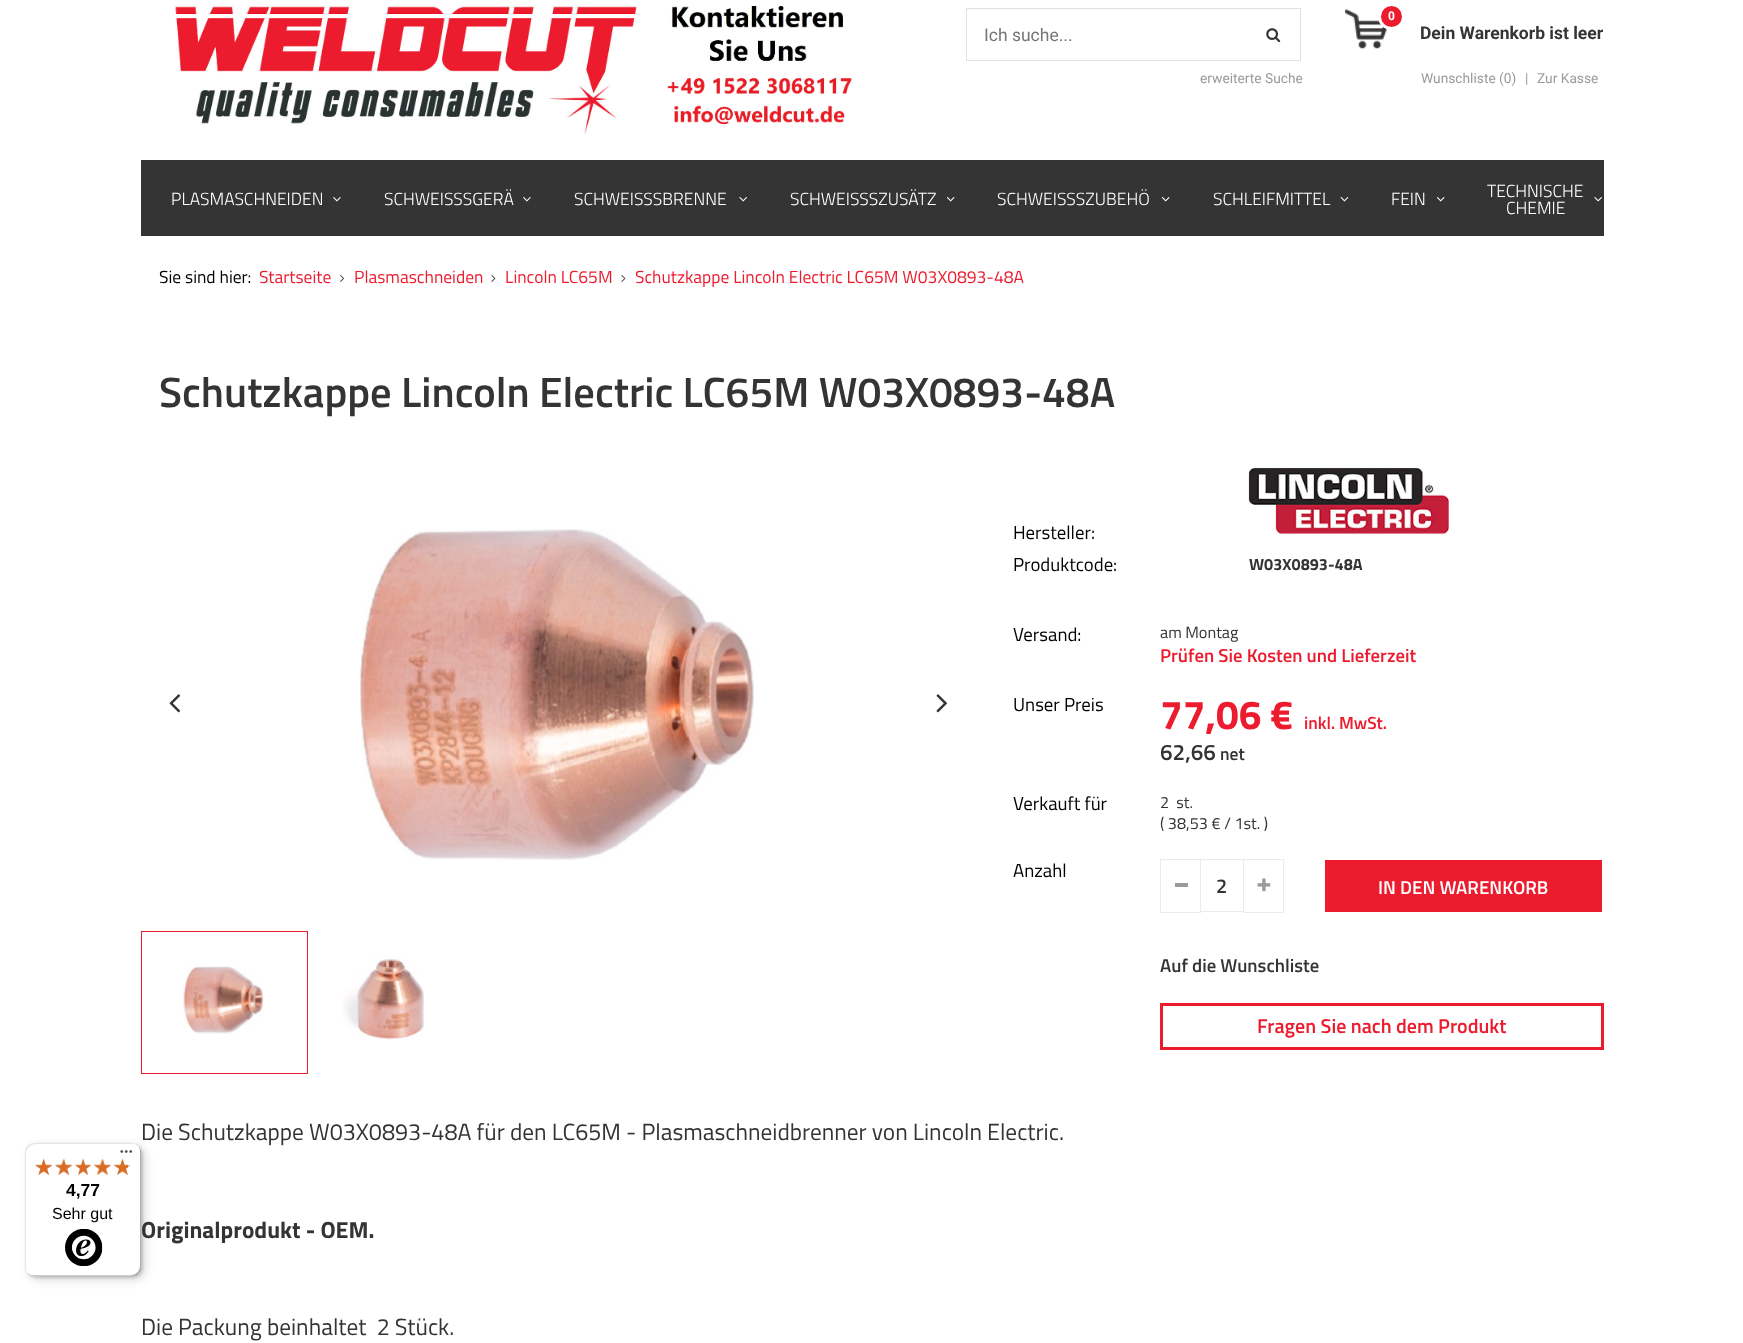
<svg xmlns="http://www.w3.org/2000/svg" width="1743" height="1343">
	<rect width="100%" height="100%" fill="#FFFFFF" />
	<rect x="29" y="1146" width="116" height="134" rx="10" fill="#000000" fill-opacity="0.15" filter="blur(5px)" />
	<rect x="26" y="1144" width="117" height="134" rx="10" fill="#000000" fill-opacity="0.15" filter="blur(1px)" />
	<rect x="25" y="1143" width="116" height="133" rx="10" fill="#FFFFFF" />
	<path d="M36 1144H132C134 1144 136 1144 137 1145C136 1144 133 1143 131 1143H35C29 1143 25 1147 25 1153V1266C25 1268 26 1270 27 1272C26 1271 26 1269 26 1268V1154C26 1148 31 1144 36 1144Z" fill="#E5E5E5" />
	<path d="M29 1274C30 1275 33 1276 35 1276H131C137 1276 141 1272 141 1266V1153C141 1151 140 1149 139 1147L140 1151V1265C140 1271 136 1275 130 1275H34C32 1275 30 1275 29 1274Z" fill="#000000" fill-opacity="0.2" />
	<path d="M130 1276H131C137 1276 141 1272 141 1266V1153C141 1151 140 1148 139 1147C140 1148 140 1150 140 1152V1266C140 1271 136 1276 130 1276Z" fill="#323232" fill-opacity="0.2" />
	<image x="120" y="1150" width="13" height="3" href="assets/img1.png" />
	<path d="M131 1276C136.5 1276 141 1271.5 141 1266C141 1271 136 1276 131 1276Z" fill="#FFFFFF" fill-opacity="0.3" />
	<image x="35" y="1159" width="17" height="16" href="assets/img7.png" />
	<image x="35" y="1158" width="17" height="17" href="assets/img2.png" />
	<image x="55" y="1159" width="17" height="16" href="assets/img8.png" />
	<image x="55" y="1158" width="18" height="17" href="assets/img3.png" />
	<image x="75" y="1159" width="16" height="16" href="assets/img9.png" />
	<image x="75" y="1158" width="16" height="17" href="assets/img4.png" />
	<image x="93" y="1159" width="18" height="16" href="assets/img10.png" />
	<image x="93" y="1158" width="18" height="17" href="assets/img5.png" />
	<image x="114" y="1159" width="17" height="16" href="assets/img11.png" />
	<image x="114" y="1158" width="14" height="17" href="assets/img6.png" />
	<text x="66" y="1196" font-family="Liberation Sans" font-size="17.5" font-weight="700" fill="#000000">4,77</text>
	<text x="52" y="1219" font-family="Liberation Sans" font-size="16" fill="#000000">Sehr gut</text>
	<image x="65" y="1229" width="38" height="37" href="assets/img12.png" />
	<image x="173" y="4" width="464" height="131" href="assets/img13.png" />
	<image x="667" y="5" width="185" height="120" href="assets/img14.png" />
	<rect x="966" y="8" width="335" height="1" fill="#E1E1E1" />
	<rect x="966" y="60" width="283" height="1" fill="#E1E1E1" />
	<rect x="966" y="8" width="1" height="53" fill="#E1E1E1" />
	<text x="984" y="41" font-family="Roboto" font-size="17.5" fill="#757575">Ich suche...</text>
	<rect x="1300" y="8" width="1" height="53" fill="#E1E1E1" />
	<rect x="1248" y="60" width="53" height="1" fill="#E1E1E1" />
	<image x="1266" y="28" width="15" height="15" href="assets/img15.png" />
	<text x="1200" y="83" font-family="Roboto" font-size="13.75" fill="#9B9B9B">erweiterte Suche</text>
	<image x="1345" y="9" width="43" height="40" href="assets/img16.png" />
	<circle cx="1391.5" cy="16.5" r="12" fill="#ED1B2E" stroke="#FFFFFF" stroke-width="3" />
	<text x="1388" y="20" font-family="Roboto" font-size="12" font-weight="700" fill="#FFFFFF">0</text>
	<text x="1420" y="39" font-family="Roboto" font-size="17.5" font-weight="700" fill="#343434">Dein Warenkorb ist leer</text>
	<g font-family="Roboto" font-size="13.75" fill="#9B9B9B">
		<text x="1421" y="83">Wunschliste (0)</text>
		<text x="1525" y="83">|</text>
		<text x="1537" y="83">Zur Kasse</text>
	</g>
	<rect x="141" y="160" width="1463" height="76" fill="#343434" />
	<text x="171" y="205" font-family="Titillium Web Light" font-size="17.5" font-weight="300" fill="#FFFFFF">PLASMASCHNEIDEN</text>
	<image x="333" y="197" width="8" height="5" href="assets/img17.png" />
	<text x="384" y="205" font-family="Titillium Web Light" font-size="17.5" font-weight="300" fill="#FFFFFF">SCHWEISSSGERÄ</text>
	<image x="523" y="197" width="8" height="5" href="assets/img17.png" />
	<text x="574" y="205" font-family="Titillium Web Light" font-size="17.5" font-weight="300" fill="#FFFFFF">SCHWEISSSBRENNE</text>
	<image x="739" y="197" width="8" height="5" href="assets/img18.png" />
	<text x="790" y="205" font-family="Titillium Web Light" font-size="17.5" font-weight="300" fill="#FFFFFF">SCHWEISSSZUSÄTZ</text>
	<image x="946" y="197" width="9" height="5" href="assets/img19.png" />
	<text x="997" y="205" font-family="Titillium Web Light" font-size="17.5" font-weight="300" fill="#FFFFFF">SCHWEISSSZUBEHÖ</text>
	<image x="1161" y="197" width="9" height="5" href="assets/img19.png" />
	<text x="1213" y="205" font-family="Titillium Web Light" font-size="17.5" font-weight="300" fill="#FFFFFF">SCHLEIFMITTEL</text>
	<image x="1340" y="197" width="9" height="5" href="assets/img20.png" />
	<text x="1391" y="205" font-family="Titillium Web Light" font-size="17.5" font-weight="300" fill="#FFFFFF">FEIN</text>
	<image x="1436" y="197" width="9" height="5" href="assets/img19.png" />
	<g font-family="Titillium Web Light" font-size="17.5" font-weight="300" fill="#FFFFFF">
		<text x="1487" y="197">TECHNISCHE</text>
		<text x="1506" y="214">CHEMIE</text>
	</g>
	<image x="1594" y="197" width="8" height="5" href="assets/img18.png" />
	<text x="159" y="283" font-family="Titillium Web" font-size="17.5" fill="#000000">Sie sind hier:</text>
	<text x="259" y="283" font-family="Titillium Web" font-size="17.5" fill="#ED1B2E">Startseite</text>
	<image x="340" y="275" width="5" height="7" href="assets/img21.png" />
	<text x="354" y="283" font-family="Titillium Web" font-size="17.5" fill="#ED1B2E">Plasmaschneiden</text>
	<image x="491" y="275" width="5" height="7" href="assets/img22.png" />
	<text x="505" y="283" font-family="Titillium Web" font-size="17.5" fill="#ED1B2E">Lincoln LC65M</text>
	<image x="621" y="275" width="5" height="7" href="assets/img22.png" />
	<text x="635" y="283" font-family="Titillium Web" font-size="17.5" fill="#ED1B2E">Schutzkappe Lincoln Electric LC65M W03X0893-48A</text>
	<text x="159" y="407" font-family="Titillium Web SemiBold" font-size="42.5" font-weight="600" fill="#343434">Schutzkappe Lincoln Electric LC65M W03X0893-48A</text>
	<image x="360" y="529" width="394" height="331" href="assets/img23.png" />
	<image x="169" y="694" width="12" height="19" href="assets/img24.png" />
	<image x="936" y="694" width="11" height="19" href="assets/img25.png" />
	<rect x="141.5" y="931.5" width="166" height="142" fill="none" stroke="#ED1B2E" />
	<image x="183" y="966" width="81" height="68" href="assets/img26.png" />
	<image x="342" y="958" width="82" height="82" href="assets/img27.png" />
	<text x="1013" y="539" font-family="Titillium Web" font-size="18.75" fill="#000000">Hersteller:</text>
	<image x="1248" y="467" width="201" height="69" href="assets/img28.png" />
	<text x="1013" y="571" font-family="Titillium Web" font-size="18.75" fill="#000000">Produktcode:</text>
	<text x="1249" y="570" font-family="Titillium Web" font-size="16.25" font-weight="700" fill="#343434">W03X0893-48A</text>
	<text x="1013" y="641" font-family="Titillium Web" font-size="18.75" fill="#000000">Versand:</text>
	<text x="1160" y="638" font-family="Titillium Web" font-size="16.25" fill="#343434">am Montag</text>
	<text x="1160" y="662" font-family="Titillium Web SemiBold" font-size="18.75" font-weight="600" fill="#ED1B2E">Prüfen Sie Kosten und Lieferzeit</text>
	<text x="1013" y="711" font-family="Titillium Web" font-size="18.75" fill="#000000">Unser Preis</text>
	<text x="1160" y="729" font-family="Titillium Web" font-size="40.5" font-weight="700" fill="#ED1B2E">77,06 €</text>
	<text x="1304" y="729" font-family="Titillium Web SemiBold" font-size="17.5" font-weight="600" fill="#ED1B2E">inkl. MwSt.</text>
	<text x="1160" y="760" font-family="Titillium Web SemiBold" font-size="22.5" font-weight="600" fill="#343434">62,66</text>
	<text x="1220" y="760" font-family="Titillium Web SemiBold" font-size="17.5" font-weight="600" fill="#343434">net</text>
	<text x="1013" y="810" font-family="Titillium Web" font-size="18.75" fill="#000000">Verkauft für</text>
	<g font-family="Titillium Web" font-size="16.25" fill="#343434">
		<text x="1160" y="808" xml:space="preserve">2  st.</text>
		<text x="1160" y="829">( 38,53 € / 1st. )</text>
	</g>
	<text x="1013" y="877" font-family="Titillium Web" font-size="18.75" fill="#000000">Anzahl</text>
	<rect x="1160.5" y="859.5" width="40" height="53" fill="none" stroke="#EBEBEB" />
	<rect x="1175" y="883" width="13" height="4" fill="#9B9B9B" />
	<rect x="1201" y="859" width="42" height="1" fill="#EBEBEB" />
	<rect x="1201" y="911" width="42" height="1" fill="#EBEBEB" />
	<text x="1216" y="893" font-family="Titillium Web SemiBold" font-size="20" font-weight="600" fill="#343434">2</text>
	<rect x="1243.5" y="859.5" width="40" height="53" fill="none" stroke="#EBEBEB" />
	<image x="1257" y="878" width="14" height="14" href="assets/img29.png" />
	<rect x="1325" y="860" width="277" height="52" fill="#ED1B2E" />
	<text x="1378" y="894" font-family="Titillium Web SemiBold" font-size="18.75" font-weight="600" fill="#FFFFFF">IN DEN WARENKORB</text>
	<text x="1160" y="972" font-family="Titillium Web SemiBold" font-size="18.75" font-weight="600" fill="#343434">Auf die Wunschliste</text>
	<rect x="1161.5" y="1004.5" width="441" height="44" fill="none" stroke="#ED1B2E" stroke-width="3" />
	<text x="1257" y="1033" font-family="Titillium Web SemiBold" font-size="20" font-weight="600" fill="#ED1B2E">Fragen Sie nach dem Produkt</text>
	<text x="141" y="1140" font-family="Titillium Web" font-size="23.35" fill="#343434">Die Schutzkappe W03X0893-48A für den LC65M - Plasmaschneidbrenner von Lincoln Electric.</text>
	<text x="141" y="1238" font-family="Titillium Web" font-size="23.35" font-weight="700" fill="#343434">Originalprodukt - OEM.</text>
	<text x="141" y="1335" font-family="Titillium Web" font-size="23.35" fill="#343434" xml:space="preserve">Die Packung beinhaltet  2 Stück.</text>
</svg>
